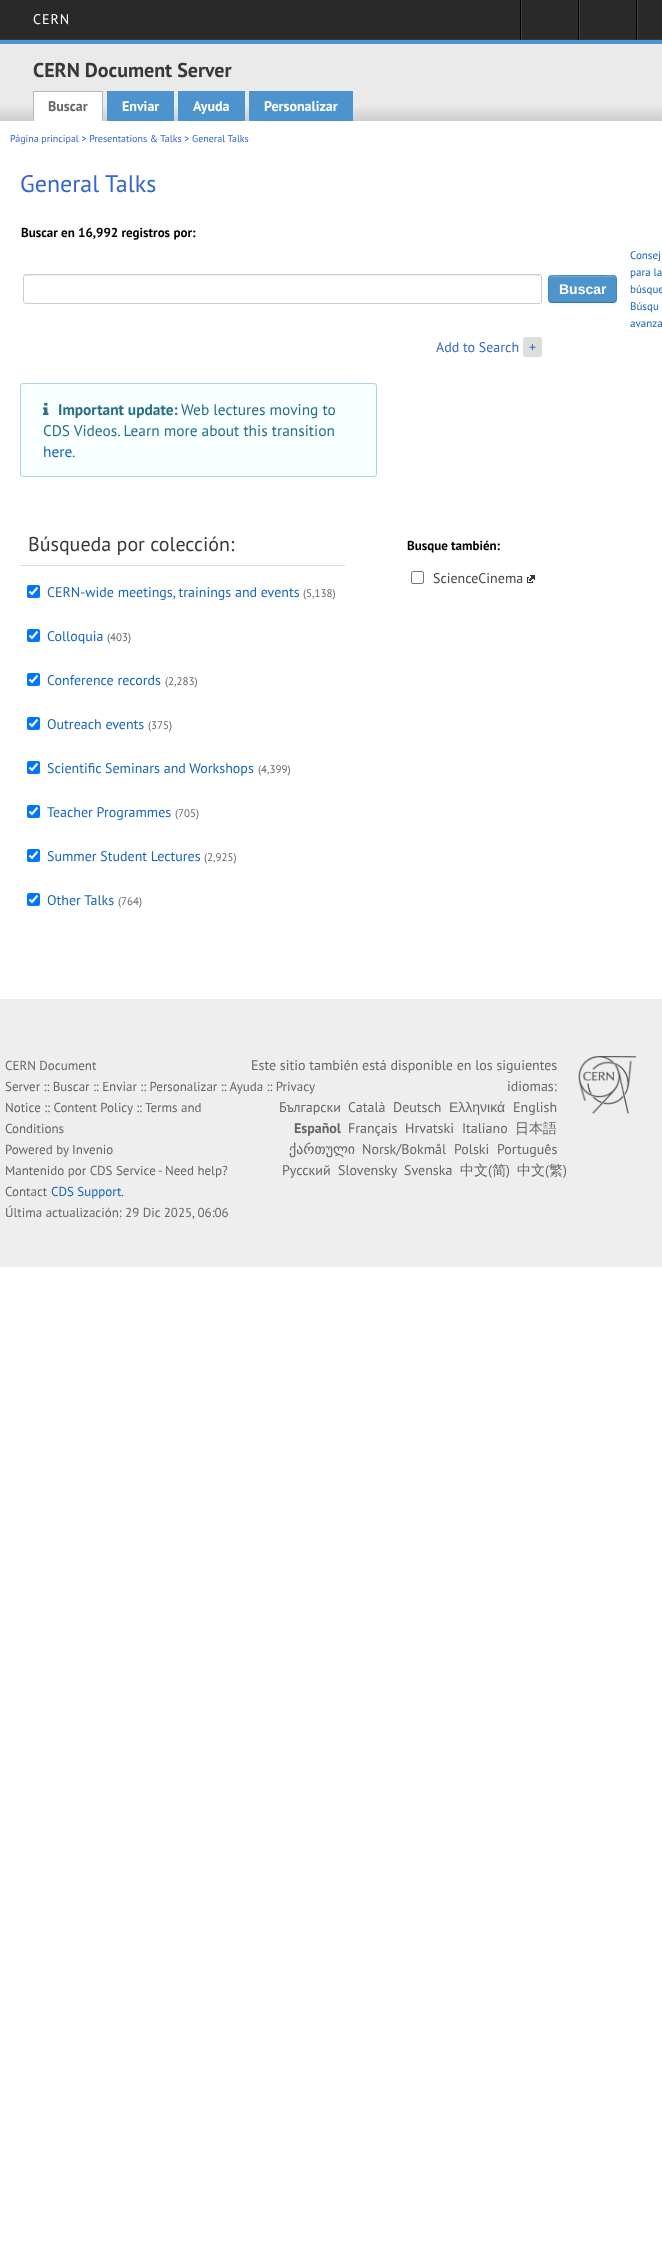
<svg xmlns="http://www.w3.org/2000/svg" width="662" height="2254">
	<rect width="100%" height="100%" fill="#FFFFFF" />
	<rect x="0" y="0" width="662" height="39" fill="#292929" />
	<rect x="0" y="39" width="662" height="1" fill="#353535" />
	<text x="33" y="24" font-family="PT Sans" font-size="14" letter-spacing="1" fill="#FFFFFF">CERN</text>
	<rect x="637" y="0" width="1" height="40" fill="#444444" />
	<rect x="636" y="0" width="1" height="40" fill="#000000" />
	<rect x="520" y="0" width="1" height="40" fill="#000000" />
	<rect x="521" y="0" width="1" height="40" fill="#444444" />
	<rect x="578" y="0" width="1" height="40" fill="#000000" />
	<rect x="579" y="0" width="1" height="40" fill="#444444" />
	<rect x="0" y="44" width="662" height="77" fill="#EAEAEA" />
	<image x="0" y="107" width="662" height="14" href="assets/img1.png" />
	<rect x="0" y="40" width="662" height="4" fill="#4D94CC" />
	<text x="33" y="77" font-family="PT Sans" font-size="20" font-weight="700" fill="#383838">CERN Document Server</text>
	<rect x="34" y="92" width="68" height="29" fill="#FFFFFF" />
	<rect x="33" y="91" width="70" height="1" fill="#B8B8B8" />
	<rect x="102" y="91" width="1" height="30" fill="#B8B8B8" />
	<rect x="33" y="91" width="1" height="30" fill="#B8B8B8" />
	<text x="48" y="111" font-family="PT Sans" font-size="14" font-weight="700" fill="#666666">Buscar</text>
	<rect x="107" y="91" width="67" height="30" fill="#4D94CE" />
	<text x="122" y="111" font-family="PT Sans" font-size="14" font-weight="700" fill="#FFFFFF">Enviar</text>
	<rect x="178" y="91" width="67" height="30" fill="#4D94CE" />
	<text x="193" y="111" font-family="PT Sans" font-size="14" font-weight="700" fill="#FFFFFF">Ayuda</text>
	<rect x="249" y="91" width="104" height="30" fill="#4D94CE" />
	<text x="264" y="111" font-family="PT Sans" font-size="14" font-weight="700" fill="#FFFFFF">Personalizar</text>
	<text x="10" y="142" font-family="PT Sans" font-size="10" fill="#3366CC">Página principal &gt; Presentations &amp; Talks &gt; General Talks</text>
	<text x="20" y="192" font-family="PT Sans" font-size="24" fill="#3366CC">General Talks</text>
	<text x="21" y="237" font-family="PT Sans" font-size="13" font-weight="700" fill="#000000">Buscar en 16,992 registros por:</text>
	<path d="M26 276H539C540 276 541 277 541 278C541 277 541 275 539 275H26L24 276V278C24 277 25 276 26 276Z" fill="#ECECEC" />
	<rect x="23.5" y="274.5" width="518" height="29" rx="2.5" fill="none" stroke="#CCCCCC" />
	<rect x="548" y="276" width="69" height="28" rx="4" fill="#000000" fill-opacity="0.05" filter="blur(1px)" />
	<rect x="548" y="275" width="69" height="28" rx="4" fill="#4D94CC" />
	<path d="M552 277H613C615 277 616 278 616 280C616 273 607 276 603 276H562C558 276 549 273 549 280C549 278 550 277 552 277Z" fill="#71A9D6" />
	<path d="M615.5 301.5L613.5 302.5H551.5L549.5 301.5" fill="none" stroke="#000000" stroke-opacity="0.25" />
	<path d="M549.5 301.5C547.5 299 548.5 291.5 548.5 289C548.5 274 546.5 275.5 562 275.5H603C618.5 275.5 616.5 274 616.5 289C616.5 291.5 617.5 299 615.5 301.5" fill="none" stroke="#000000" stroke-opacity="0.1" />
	<text x="559" y="294" font-family="Liberation Sans" font-size="14" font-weight="700" fill="#FFFFFF">Buscar</text>
	<g font-family="PT Sans" font-size="11" fill="#1565BA">
		<text x="630" y="259">Consej</text>
		<text x="630" y="276">para la</text>
		<text x="630" y="293">búsque</text>
		<text x="630" y="310">Búsqu</text>
		<text x="630" y="327">avanza</text>
	</g>
	<text x="436" y="352" font-family="PT Sans" font-size="14" fill="#3366CC">Add to Search</text>
	<rect x="523" y="337" width="19" height="20" rx="3" fill="#DDDDDD" />
	<text x="529" y="352" font-family="PT Sans" font-size="14" fill="#3366CC">+</text>
	<rect x="20.5" y="383.5" width="356" height="93" rx="2.5" fill="#F8FFFF" stroke="#A9D5DE" />
	<image x="43" y="402" width="6" height="13" href="assets/img2.png" />
	<text x="58" y="415" font-family="PT Sans" font-size="15.4" font-weight="700" fill="#276F86">Important update:</text>
	<g font-family="PT Sans" font-size="15.4" fill="#276F86">
		<text x="181" y="415">Web lectures moving to</text>
		<text x="43" y="436">CDS Videos. Learn more about this transition</text>
	</g>
	<text x="43" y="457" font-family="PT Sans" font-size="15.4" fill="#1565BA">here</text>
	<text x="72" y="457" font-family="PT Sans" font-size="15.4" fill="#276F86">.</text>
	<rect x="20" y="565" width="325" height="1" fill="#DDDDDD" />
	<text x="28" y="551" font-family="PT Sans" font-size="20" fill="#383838">Búsqueda por colección:</text>
	<rect x="27" y="585" width="13" height="13" rx="2" fill="#0075FF" />
	<path d="M29.5 591.5L32 594L37.5 587.5" fill="none" stroke="#FFFFFF" stroke-width="2.1" />
	<text x="47" y="597" font-family="PT Sans" font-size="14" fill="#1565BA">CERN-wide meetings, trainings and events</text>
	<text x="303" y="597" font-family="PT Sans" font-size="11" fill="#666666">(5,138)</text>
	<rect x="27" y="629" width="13" height="13" rx="2" fill="#0075FF" />
	<path d="M29.5 635.5L32 638L37.5 631.5" fill="none" stroke="#FFFFFF" stroke-width="2.1" />
	<text x="47" y="641" font-family="PT Sans" font-size="14" fill="#1565BA">Colloquia</text>
	<text x="107" y="641" font-family="PT Sans" font-size="11" fill="#666666">(403)</text>
	<rect x="27" y="673" width="13" height="13" rx="2" fill="#0075FF" />
	<path d="M29.5 679.5L32 682L37.5 675.5" fill="none" stroke="#FFFFFF" stroke-width="2.1" />
	<text x="47" y="685" font-family="PT Sans" font-size="14" fill="#1565BA">Conference records</text>
	<text x="165" y="685" font-family="PT Sans" font-size="11" fill="#666666">(2,283)</text>
	<rect x="27" y="717" width="13" height="13" rx="2" fill="#0075FF" />
	<path d="M29.5 723.5L32 726L37.5 719.5" fill="none" stroke="#FFFFFF" stroke-width="2.1" />
	<text x="47" y="729" font-family="PT Sans" font-size="14" fill="#1565BA">Outreach events</text>
	<text x="148" y="729" font-family="PT Sans" font-size="11" fill="#666666">(375)</text>
	<rect x="27" y="761" width="13" height="13" rx="2" fill="#0075FF" />
	<path d="M29.5 767.5L32 770L37.5 763.5" fill="none" stroke="#FFFFFF" stroke-width="2.1" />
	<text x="47" y="773" font-family="PT Sans" font-size="14" fill="#1565BA">Scientific Seminars and Workshops</text>
	<text x="258" y="773" font-family="PT Sans" font-size="11" fill="#666666">(4,399)</text>
	<rect x="27" y="805" width="13" height="13" rx="2" fill="#0075FF" />
	<path d="M29.5 811.5L32 814L37.5 807.5" fill="none" stroke="#FFFFFF" stroke-width="2.1" />
	<text x="47" y="817" font-family="PT Sans" font-size="14" fill="#1565BA">Teacher Programmes</text>
	<text x="175" y="817" font-family="PT Sans" font-size="11" fill="#666666">(705)</text>
	<rect x="27" y="849" width="13" height="13" rx="2" fill="#0075FF" />
	<path d="M29.5 855.5L32 858L37.5 851.5" fill="none" stroke="#FFFFFF" stroke-width="2.1" />
	<text x="47" y="861" font-family="PT Sans" font-size="14" fill="#1565BA">Summer Student Lectures</text>
	<text x="204" y="861" font-family="PT Sans" font-size="11" fill="#666666">(2,925)</text>
	<rect x="27" y="893" width="13" height="13" rx="2" fill="#0075FF" />
	<path d="M29.5 899.5L32 902L37.5 895.5" fill="none" stroke="#FFFFFF" stroke-width="2.1" />
	<text x="47" y="905" font-family="PT Sans" font-size="14" fill="#1565BA">Other Talks</text>
	<text x="118" y="905" font-family="PT Sans" font-size="11" fill="#666666">(764)</text>
	<text x="407" y="550" font-family="PT Sans" font-size="13" font-weight="700" fill="#000000">Busque también:</text>
	<rect x="411.5" y="571.5" width="12" height="12" rx="1.5" fill="none" stroke="#767676" />
	<text x="433" y="583" font-family="PT Sans" font-size="14" fill="#444444">ScienceCinema</text>
	<image x="527" y="575" width="8" height="8" href="assets/img3.png" />
	<rect x="0" y="999" width="662" height="268" fill="#EEEEEE" />
	<g font-family="PT Sans" font-size="13" fill="#666666">
		<text x="5" y="1070">CERN Document</text>
		<text x="5" y="1091">Server :: Buscar :: Enviar :: Personalizar :: Ayuda :: Privacy</text>
		<text x="5" y="1112">Notice :: Content Policy :: Terms and</text>
		<text x="5" y="1133">Conditions</text>
		<text x="5" y="1154">Powered by Invenio</text>
		<text x="5" y="1175">Mantenido por CDS Service</text>
		<text x="158" y="1175">- Need help?</text>
		<text x="5" y="1196">Contact</text>
	</g>
	<text x="51" y="1196" font-family="PT Sans" font-size="13" fill="#1565BA">CDS Support</text>
	<g font-family="PT Sans" font-size="13" fill="#666666">
		<text x="121" y="1196">.</text>
		<text x="5" y="1217">Última actualización: 29 Dic 2025, 06:06</text>
	</g>
	<g font-family="PT Sans" font-size="14" fill="#666666">
		<text x="251" y="1070">Este sitio también está disponible en los siguientes</text>
		<text x="507" y="1091">idiomas:</text>
		<text x="279" y="1112">Български</text>
		<text x="348" y="1112">Català</text>
		<text x="393" y="1112">Deutsch</text>
	</g>
	<text x="449" y="1112" font-family="Liberation Sans" font-size="14" fill="#666666">Ελληνικά</text>
	<text x="513" y="1112" font-family="PT Sans" font-size="14" fill="#666666">English</text>
	<text x="294" y="1133" font-family="PT Sans" font-size="14" font-weight="700" fill="#666666">Español</text>
	<g font-family="PT Sans" font-size="14" fill="#666666">
		<text x="348" y="1133">Français</text>
		<text x="405" y="1133">Hrvatski</text>
		<text x="462" y="1133">Italiano</text>
	</g>
	<text x="515" y="1133" font-family="WenQuanYi Zen Hei" font-size="14" font-weight="500" fill="#666666">日本語</text>
	<text x="289" y="1154" font-family="DejaVu Sans" font-size="14" fill="#666666">ქართული</text>
	<g font-family="PT Sans" font-size="14" fill="#666666">
		<text x="362" y="1154">Norsk/Bokmål</text>
		<text x="454" y="1154">Polski</text>
		<text x="497" y="1154">Português</text>
		<text x="282" y="1175">Русский</text>
		<text x="338" y="1175">Slovensky</text>
		<text x="404" y="1175">Svenska</text>
	</g>
	<g font-family="WenQuanYi Zen Hei" font-size="14" font-weight="500" fill="#666666">
		<text x="460" y="1175">中文 简</text>
		<text x="517" y="1175">中文</text>
	</g>
	<text x="545" y="1175" font-family="PT Sans" font-size="14" fill="#666666">(</text>
	<text x="549" y="1175" font-family="WenQuanYi Zen Hei" font-size="14" font-weight="500" fill="#666666">繁</text>
	<g font-family="PT Sans" font-size="14" fill="#666666">
		<text x="488" y="1175">(</text>
		<text x="506" y="1175">)</text>
		<text x="563" y="1175">)</text>
	</g>
	<image x="578" y="1056" width="59" height="58" href="assets/img4.png" />
</svg>
